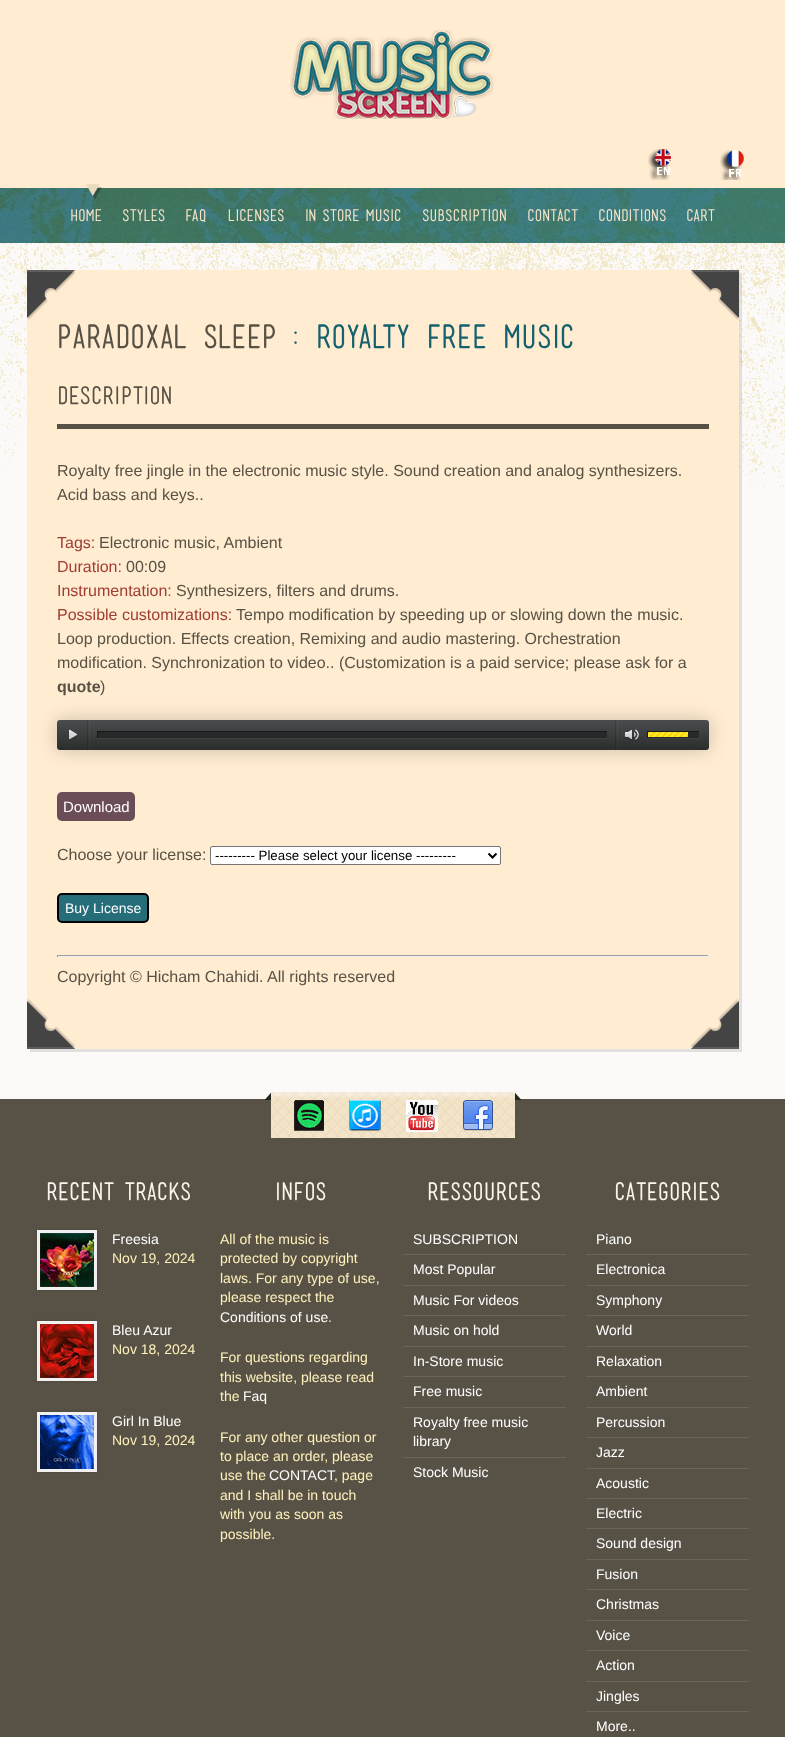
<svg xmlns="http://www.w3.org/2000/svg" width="785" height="1737">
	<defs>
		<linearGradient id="g1" gradientUnits="userSpaceOnUse" x1="383" y1="720" x2="383" y2="750"><stop offset="0" stop-color="#4A4C4D" /><stop offset="1" stop-color="#2B2D2D" /></linearGradient>
		<clipPath id="clip1"><rect x="97" y="731" width="510" height="7" /></clipPath>
		<clipPath id="clip2"><rect x="647" y="731" width="52" height="7" /></clipPath>
		<linearGradient id="g2" gradientUnits="userSpaceOnUse" x1="654" y1="737" x2="648" y2="732"><stop offset="0.25" stop-color="#FEEA36" /><stop offset="0.25" stop-color="#FDD500" /><stop offset="0.5" stop-color="#FDD500" /><stop offset="0.5" stop-color="#FEEA36" /><stop offset="0.75" stop-color="#FEEA36" /><stop offset="0.75" stop-color="#FDD500" /><stop offset="1" stop-color="#FDD500" /></linearGradient>
		<linearGradient id="g3" gradientUnits="userSpaceOnUse" x1="660" y1="737" x2="654" y2="732"><stop offset="0.25" stop-color="#FEEA36" /><stop offset="0.25" stop-color="#FDD500" /><stop offset="0.5" stop-color="#FDD500" /><stop offset="0.5" stop-color="#FEEA36" /><stop offset="0.75" stop-color="#FEEA36" /><stop offset="0.75" stop-color="#FDD500" /><stop offset="1" stop-color="#FDD500" /></linearGradient>
		<linearGradient id="g4" gradientUnits="userSpaceOnUse" x1="666" y1="737" x2="660" y2="732"><stop offset="0.25" stop-color="#FEEA36" /><stop offset="0.25" stop-color="#FDD500" /><stop offset="0.5" stop-color="#FDD500" /><stop offset="0.5" stop-color="#FEEA36" /><stop offset="0.75" stop-color="#FEEA36" /><stop offset="0.75" stop-color="#FDD500" /><stop offset="1" stop-color="#FDD500" /></linearGradient>
		<linearGradient id="g5" gradientUnits="userSpaceOnUse" x1="672" y1="737" x2="666" y2="732"><stop offset="0.25" stop-color="#FEEA36" /><stop offset="0.25" stop-color="#FDD500" /><stop offset="0.5" stop-color="#FDD500" /><stop offset="0.5" stop-color="#FEEA36" /><stop offset="0.75" stop-color="#FEEA36" /><stop offset="0.75" stop-color="#FDD500" /><stop offset="1" stop-color="#FDD500" /></linearGradient>
		<linearGradient id="g6" gradientUnits="userSpaceOnUse" x1="678" y1="737" x2="672" y2="732"><stop offset="0.25" stop-color="#FEEA36" /><stop offset="0.25" stop-color="#FDD500" /><stop offset="0.5" stop-color="#FDD500" /><stop offset="0.5" stop-color="#FEEA36" /><stop offset="0.75" stop-color="#FEEA36" /><stop offset="0.75" stop-color="#FDD500" /><stop offset="1" stop-color="#FDD500" /></linearGradient>
		<linearGradient id="g7" gradientUnits="userSpaceOnUse" x1="684" y1="737" x2="678" y2="732"><stop offset="0.25" stop-color="#FEEA36" /><stop offset="0.25" stop-color="#FDD500" /><stop offset="0.5" stop-color="#FDD500" /><stop offset="0.5" stop-color="#FEEA36" /><stop offset="0.75" stop-color="#FEEA36" /><stop offset="0.75" stop-color="#FDD500" /><stop offset="1" stop-color="#FDD500" /></linearGradient>
		<linearGradient id="g8" gradientUnits="userSpaceOnUse" x1="690" y1="737" x2="684" y2="732"><stop offset="0.25" stop-color="#FEEA36" /><stop offset="0.25" stop-color="#FDD500" /><stop offset="0.5" stop-color="#FDD500" /><stop offset="0.5" stop-color="#FEEA36" /><stop offset="0.75" stop-color="#FEEA36" /><stop offset="0.75" stop-color="#FDD500" /><stop offset="1" stop-color="#FDD500" /></linearGradient>
	</defs>
	<rect width="100%" height="100%" fill="#FBFAF8" />
	<image x="0" y="243" width="785" height="245" href="assets/img1.png" />
	<rect x="0" y="0" width="785" height="188" fill="#FFECD1" />
	<image x="290" y="30" width="204" height="89" href="assets/img2.png" />
	<image x="648" y="149" width="23" height="31" href="assets/img3.png" />
	<image x="720" y="150" width="24" height="30" href="assets/img4.png" />
	<image x="0" y="188" width="785" height="55" href="assets/img5.png" />
	<image x="86" y="184" width="16" height="15" href="assets/img6.png" />
	<g font-family="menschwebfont" font-size="16" fill="#F3E4C8">
		<text x="70" y="221">Home</text>
		<text x="122" y="221">Styles</text>
		<text x="185" y="221">Faq</text>
		<text x="227" y="221">Licenses</text>
		<text x="305" y="221" word-spacing="-2">In Store music</text>
		<text x="422" y="221">Subscription</text>
		<text x="527" y="221">Contact</text>
		<text x="598" y="221">Conditions</text>
		<text x="686" y="221">Cart</text>
	</g>
	<path d="M30 1049V1052H742V273H739V1049Z" fill="#000000" fill-opacity="0.1" />
	<rect x="27" y="270" width="712" height="779" fill="#FFECD1" />
	<image x="27" y="270" width="48" height="50" href="assets/img7.png" />
	<image x="691" y="270" width="48" height="50" href="assets/img8.png" />
	<text x="57" y="348" font-family="menschwebfont" font-size="32" fill="#585246">Paradoxal sleep</text>
	<text x="293" y="348" font-family="menschwebfont" font-size="32" fill="#15616D">: Royalty Free Music</text>
	<rect x="57" y="424" width="652" height="5" fill="#585246" />
	<text x="57" y="404" font-family="menschwebfont" font-size="24" fill="#585246">Description</text>
	<g font-family="Liberation Sans" font-size="16" fill="#585246">
		<text x="57" y="476">Royalty free jingle in the electronic music style. Sound creation and analog synthesizers.</text>
		<text x="57" y="500">Acid bass and keys..</text>
	</g>
	<text x="57" y="548" font-family="Liberation Sans" font-size="16" fill="#A03D32">Tags:</text>
	<text x="99" y="548" font-family="Liberation Sans" font-size="16" fill="#585246">Electronic music, Ambient</text>
	<text x="57" y="572" font-family="Liberation Sans" font-size="16" fill="#A03D32">Duration:</text>
	<text x="126" y="572" font-family="Liberation Sans" font-size="16" fill="#585246">00:09</text>
	<text x="57" y="596" font-family="Liberation Sans" font-size="16" fill="#A03D32">Instrumentation:</text>
	<text x="176" y="596" font-family="Liberation Sans" font-size="16" fill="#585246">Synthesizers, filters and drums.</text>
	<text x="57" y="620" font-family="Liberation Sans" font-size="16" fill="#A03D32">Possible customizations:</text>
	<g font-family="Liberation Sans" font-size="16" fill="#585246">
		<text x="236" y="620">Tempo modification by speeding up or slowing down the music.</text>
		<text x="57" y="644">Loop production. Effects creation, Remixing and audio mastering. Orchestration</text>
		<text x="57" y="668">modification. Synchronization to video.. (Customization is a paid service; please ask for a</text>
	</g>
	<text x="57" y="692" font-family="Liberation Sans" font-size="16" font-weight="700" fill="#585246">quote</text>
	<text x="100" y="692" font-family="Liberation Sans" font-size="16" fill="#585246">)</text>
	<rect x="57" y="720" width="652" height="30" fill="#000000" fill-opacity="0.2" filter="blur(9px)" />
	<rect x="57" y="720" width="652" height="30" rx="3" fill="url(#g1)" />
	<image x="68" y="729" width="10" height="11" href="assets/img9.png" />
	<image x="87" y="720" width="3" height="30" href="assets/img10.png" />
	<rect x="97" y="732" width="510" height="6" fill="#262929" />
	<g clip-path="url(#clip1)">
		<path d="M-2 632H706V837H-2ZM98 732H608V739H98Z" fill="#171919" fill-rule="evenodd" />
	</g>
	<rect x="97" y="738" width="510" height="1" fill="#3D3F40" />
	<image x="615" y="720" width="3" height="30" href="assets/img10.png" />
	<image x="624" y="729" width="15" height="12" href="assets/img11.png" />
	<rect x="647" y="732" width="52" height="6" fill="#262929" />
	<g clip-path="url(#clip2)">
		<path d="M548 632H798V837H548ZM648 732H700V739H648Z" fill="#171919" fill-rule="evenodd" />
	</g>
	<rect x="647" y="738" width="52" height="1" fill="#3D3F40" />
	<rect x="648" y="732" width="6" height="5" fill="url(#g2)" />
	<rect x="654" y="732" width="6" height="5" fill="url(#g3)" />
	<rect x="660" y="732" width="6" height="5" fill="url(#g4)" />
	<rect x="666" y="732" width="6" height="5" fill="url(#g5)" />
	<rect x="672" y="732" width="6" height="5" fill="url(#g6)" />
	<rect x="678" y="732" width="6" height="5" fill="url(#g7)" />
	<rect x="684" y="732" width="4" height="5" fill="url(#g8)" />
	<rect x="57" y="792" width="78" height="29" rx="5" fill="#6B4D57" />
	<text x="63" y="812" font-family="Liberation Sans" font-size="15" fill="#FFFFFF">Download</text>
	<text x="57" y="860" font-family="Liberation Sans" font-size="16" fill="#585246">Choose your license:</text>
	<rect x="210.5" y="846.5" width="290" height="18" rx="1.5" fill="#FFFFFF" stroke="#767676" />
	<path d="M488.5 853.5L492.5 857.5L496.5 853.5" fill="none" stroke="#000000" stroke-width="2" />
	<text x="215" y="860" font-family="Liberation Sans" font-size="13.3" fill="#000000">--------- Please select your license ---------</text>
	<rect x="58" y="894" width="90" height="28" rx="4" fill="#256D79" stroke="#000000" stroke-width="2" />
	<text x="65" y="913" font-family="Liberation Sans" font-size="14" fill="#FFFFFF">Buy License</text>
	<rect x="57" y="955" width="652" height="1" fill="#9F9F9F" />
	<rect x="708" y="955" width="1" height="2" fill="#EEEEEE" />
	<rect x="57" y="956" width="652" height="1" fill="#EEEEEE" />
	<rect x="57" y="955" width="1" height="2" fill="#9F9F9F" />
	<text x="57" y="982" font-family="Liberation Sans" font-size="16" fill="#585246">Copyright © Hicham Chahidi. All rights reserved</text>
	<image x="27" y="999" width="48" height="50" href="assets/img12.png" />
	<image x="691" y="999" width="48" height="50" href="assets/img13.png" />
	<rect x="0" y="1099" width="785" height="638" fill="#585246" />
	<image x="271" y="1092" width="244" height="46" href="assets/img14.png" />
	<image x="264" y="1093" width="7" height="7" href="assets/img15.png" />
	<image x="515" y="1093" width="7" height="7" href="assets/img16.png" />
	<image x="294" y="1100" width="30" height="31" href="assets/img17.png" />
	<image x="349" y="1100" width="32" height="32" href="assets/img18.png" />
	<image x="406" y="1100" width="32" height="32" href="assets/img19.png" />
	<image x="463" y="1100" width="30" height="31" href="assets/img20.png" />
	<text x="46" y="1200" word-spacing="-2" font-family="menschwebfont" font-size="24" fill="#F9F5ED">Recent Tracks</text>
	<rect x="37" y="1230" width="60" height="60" fill="#000000" fill-opacity="0.2" filter="blur(1px)" />
	<rect x="37" y="1230" width="60" height="60" fill="#F1F1F1" />
	<image x="40" y="1233" width="54" height="54" href="assets/img21.png" />
	<text x="112" y="1244" font-family="Liberation Sans" font-size="14" fill="#FFFFFF">Freesia</text>
	<text x="112" y="1263" font-family="Liberation Sans" font-size="14" fill="#FEF1BC">Nov 19, 2024</text>
	<rect x="37" y="1321" width="60" height="60" fill="#000000" fill-opacity="0.2" filter="blur(1px)" />
	<rect x="37" y="1321" width="60" height="60" fill="#F1F1F1" />
	<image x="40" y="1324" width="54" height="54" href="assets/img22.png" />
	<text x="112" y="1335" font-family="Liberation Sans" font-size="14" fill="#FFFFFF">Bleu Azur</text>
	<text x="112" y="1354" font-family="Liberation Sans" font-size="14" fill="#FEF1BC">Nov 18, 2024</text>
	<rect x="37" y="1412" width="60" height="60" fill="#000000" fill-opacity="0.2" filter="blur(1px)" />
	<rect x="37" y="1412" width="60" height="60" fill="#F1F1F1" />
	<image x="40" y="1415" width="54" height="54" href="assets/img23.png" />
	<text x="112" y="1426" font-family="Liberation Sans" font-size="14" fill="#FFFFFF">Girl In Blue</text>
	<text x="112" y="1445" font-family="Liberation Sans" font-size="14" fill="#FEF1BC">Nov 19, 2024</text>
	<text x="275" y="1200" font-family="menschwebfont" font-size="24" fill="#F9F5ED">INFOS</text>
	<g font-family="Liberation Sans" font-size="14" fill="#FEF1BC">
		<text x="220" y="1244">All of the music is</text>
		<text x="220" y="1263">protected by copyright</text>
		<text x="220" y="1283">laws. For any type of use,</text>
		<text x="220" y="1302">please respect the</text>
	</g>
	<text x="220" y="1322" font-family="Liberation Sans" font-size="14" fill="#FFFFFF">Conditions of use</text>
	<text x="328" y="1322" font-family="Liberation Sans" font-size="14" fill="#F3E4C8">.</text>
	<g font-family="Liberation Sans" font-size="14" fill="#FEF1BC">
		<text x="220" y="1362">For questions regarding</text>
		<text x="220" y="1382">this website, please read</text>
		<text x="220" y="1401">the</text>
	</g>
	<text x="243" y="1401" font-family="Liberation Sans" font-size="14" fill="#FFFFFF">Faq</text>
	<g font-family="Liberation Sans" font-size="14" fill="#FEF1BC">
		<text x="220" y="1442">For any other question or</text>
		<text x="220" y="1461">to place an order, please</text>
		<text x="220" y="1480">use the</text>
	</g>
	<text x="269" y="1480" font-family="Liberation Sans" font-size="14" fill="#FFFFFF">CONTACT</text>
	<g font-family="Liberation Sans" font-size="14" fill="#FEF1BC">
		<text x="334" y="1480">, page</text>
		<text x="220" y="1500">and I shall be in touch</text>
		<text x="220" y="1519">with you as soon as</text>
		<text x="220" y="1539">possible.</text>
	</g>
	<text x="427" y="1200" font-family="menschwebfont" font-size="24" fill="#F9F5ED">RESSOURCES</text>
	<rect x="403" y="1254" width="163" height="1" fill="#696359" />
	<text x="413" y="1244" font-family="Liberation Sans" font-size="14" fill="#FFFFFF">SUBSCRIPTION</text>
	<rect x="403" y="1285" width="163" height="1" fill="#696359" />
	<text x="413" y="1274" font-family="Liberation Sans" font-size="14" fill="#FFFFFF">Most Popular</text>
	<rect x="403" y="1315" width="163" height="1" fill="#696359" />
	<text x="413" y="1305" font-family="Liberation Sans" font-size="14" fill="#FFFFFF">Music For videos</text>
	<rect x="403" y="1346" width="163" height="1" fill="#696359" />
	<text x="413" y="1335" font-family="Liberation Sans" font-size="14" fill="#FFFFFF">Music on hold</text>
	<rect x="403" y="1376" width="163" height="1" fill="#696359" />
	<text x="413" y="1366" font-family="Liberation Sans" font-size="14" fill="#FFFFFF">In-Store music</text>
	<rect x="403" y="1407" width="163" height="1" fill="#696359" />
	<text x="413" y="1396" font-family="Liberation Sans" font-size="14" fill="#FFFFFF">Free music</text>
	<rect x="403" y="1457" width="163" height="1" fill="#696359" />
	<g font-family="Liberation Sans" font-size="14" fill="#FFFFFF">
		<text x="413" y="1427">Royalty free music</text>
		<text x="413" y="1446">library</text>
		<text x="413" y="1477">Stock Music</text>
	</g>
	<text x="614" y="1200" font-family="menschwebfont" font-size="24" fill="#F9F5ED">CATEGORIES</text>
	<rect x="586" y="1254" width="163" height="1" fill="#696359" />
	<text x="596" y="1244" font-family="Liberation Sans" font-size="14" fill="#FFFFFF">Piano</text>
	<rect x="586" y="1285" width="163" height="1" fill="#696359" />
	<text x="596" y="1274" font-family="Liberation Sans" font-size="14" fill="#FFFFFF">Electronica</text>
	<rect x="586" y="1315" width="163" height="1" fill="#696359" />
	<text x="596" y="1305" font-family="Liberation Sans" font-size="14" fill="#FFFFFF">Symphony</text>
	<rect x="586" y="1346" width="163" height="1" fill="#696359" />
	<text x="596" y="1335" font-family="Liberation Sans" font-size="14" fill="#FFFFFF">World</text>
	<rect x="586" y="1376" width="163" height="1" fill="#696359" />
	<text x="596" y="1366" font-family="Liberation Sans" font-size="14" fill="#FFFFFF">Relaxation</text>
	<rect x="586" y="1407" width="163" height="1" fill="#696359" />
	<text x="596" y="1396" font-family="Liberation Sans" font-size="14" fill="#FFFFFF">Ambient</text>
	<rect x="586" y="1437" width="163" height="1" fill="#696359" />
	<text x="596" y="1427" font-family="Liberation Sans" font-size="14" fill="#FFFFFF">Percussion</text>
	<rect x="586" y="1468" width="163" height="1" fill="#696359" />
	<text x="596" y="1457" font-family="Liberation Sans" font-size="14" fill="#FFFFFF">Jazz</text>
	<rect x="586" y="1498" width="163" height="1" fill="#696359" />
	<text x="596" y="1488" font-family="Liberation Sans" font-size="14" fill="#FFFFFF">Acoustic</text>
	<rect x="586" y="1528" width="163" height="1" fill="#696359" />
	<text x="596" y="1518" font-family="Liberation Sans" font-size="14" fill="#FFFFFF">Electric</text>
	<rect x="586" y="1559" width="163" height="1" fill="#696359" />
	<text x="596" y="1548" font-family="Liberation Sans" font-size="14" fill="#FFFFFF">Sound design</text>
	<rect x="586" y="1589" width="163" height="1" fill="#696359" />
	<text x="596" y="1579" font-family="Liberation Sans" font-size="14" fill="#FFFFFF">Fusion</text>
	<rect x="586" y="1620" width="163" height="1" fill="#696359" />
	<text x="596" y="1609" font-family="Liberation Sans" font-size="14" fill="#FFFFFF">Christmas</text>
	<rect x="586" y="1650" width="163" height="1" fill="#696359" />
	<text x="596" y="1640" font-family="Liberation Sans" font-size="14" fill="#FFFFFF">Voice</text>
	<rect x="586" y="1681" width="163" height="1" fill="#696359" />
	<text x="596" y="1670" font-family="Liberation Sans" font-size="14" fill="#FFFFFF">Action</text>
	<rect x="586" y="1711" width="163" height="1" fill="#696359" />
	<g font-family="Liberation Sans" font-size="14" fill="#FFFFFF">
		<text x="596" y="1701">Jingles</text>
		<text x="596" y="1731">More..</text>
	</g>
</svg>
